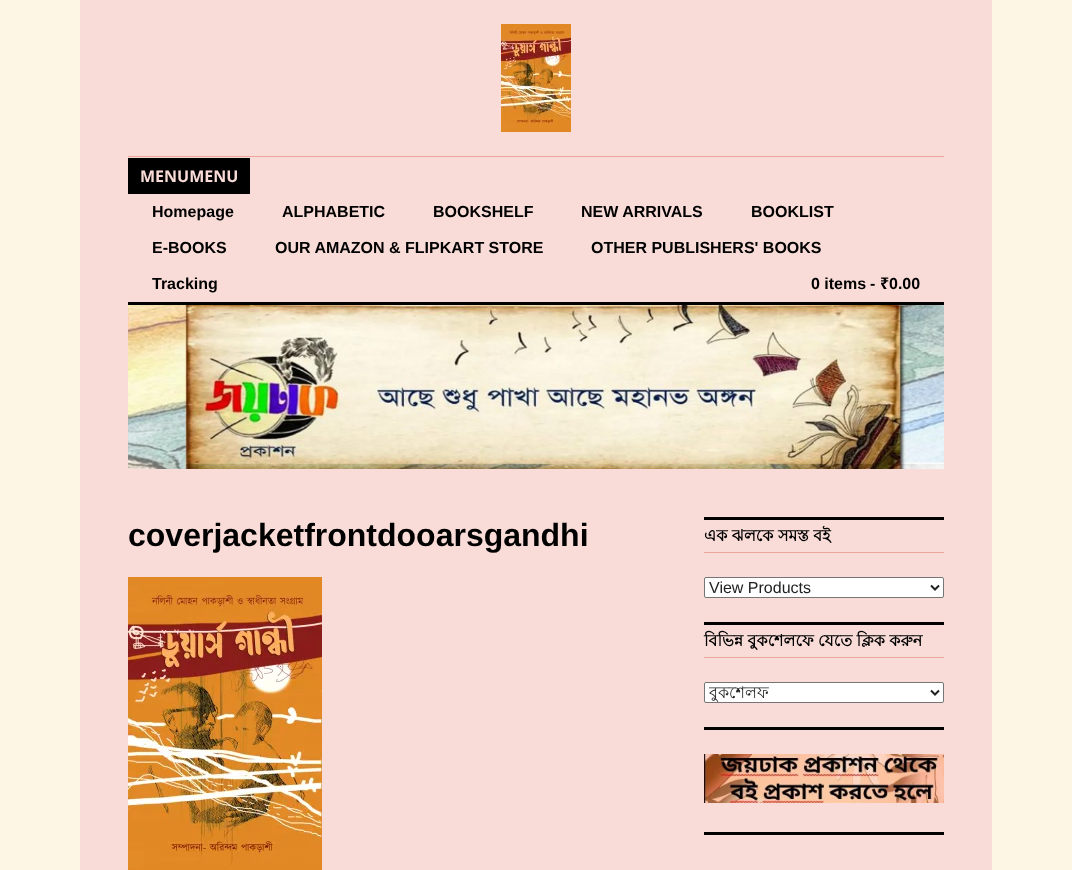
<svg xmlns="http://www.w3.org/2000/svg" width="1072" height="870">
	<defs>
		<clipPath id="clip1"><rect x="709" y="683" width="218" height="19" /></clipPath>
	</defs>
	<rect width="100%" height="100%" fill="#FDF6E4" />
	<rect x="80" y="0" width="912" height="870" fill="#F9DCD7" />
	<image x="501" y="24" width="70" height="108" href="assets/img1.png" />
	<rect x="128" y="156" width="816" height="1" fill="#EBA69D" />
	<rect x="128" y="302" width="816" height="3" fill="#000000" />
	<rect x="128" y="158" width="122" height="36" fill="#000000" />
	<text x="140" y="182" font-family="Open Sans" font-size="16" font-weight="700" fill="#F9DCD7">MENUMENU</text>
	<g font-family="Liberation Sans" font-size="16" font-weight="700" fill="#000000">
		<text x="152" y="217">Homepage</text>
		<text x="282" y="217">ALPHABETIC</text>
		<text x="433" y="217">BOOKSHELF</text>
		<text x="581" y="217">NEW ARRIVALS</text>
		<text x="751" y="217">BOOKLIST</text>
		<text x="152" y="253">E-BOOKS</text>
		<text x="275" y="253">OUR AMAZON &amp; FLIPKART STORE</text>
		<text x="591" y="253">OTHER PUBLISHERS' BOOKS</text>
		<text x="152" y="289">Tracking</text>
		<text x="811" y="289">0 items</text>
		<text x="870" y="289">-</text>
	</g>
	<text x="880" y="289" font-family="Noto Sans" font-size="16" font-weight="700" fill="#000000">₹</text>
	<text x="889" y="289" font-family="Liberation Sans" font-size="16" font-weight="700" fill="#000000">0.00</text>
	<image x="128" y="305" width="816" height="164" href="assets/img2.png" />
	<text x="128" y="546" font-family="Liberation Sans" font-size="32" font-weight="700" fill="#000000">coverjacketfrontdooarsgandhi</text>
	<image x="128" y="577" width="194" height="293" href="assets/img3.png" />
	<rect x="704" y="517" width="240" height="3" fill="#000000" />
	<rect x="704" y="552" width="240" height="1" fill="#EBA69D" />
	<text x="704" y="541" font-family="Lohit Bengali" font-size="16" font-weight="700" fill="#000000">এক ঝলকে সমস্ত বই</text>
	<rect x="704.5" y="577.5" width="239" height="20" rx="1.5" fill="#FFFFFF" stroke="#767676" />
	<path d="M931 585.5L935 589.5L939 585.5" fill="none" stroke="#222222" stroke-width="2" />
	<text x="709" y="593" font-family="Liberation Sans" font-size="16" fill="#222222">View Products</text>
	<rect x="704" y="622" width="240" height="3" fill="#000000" />
	<rect x="704" y="657" width="240" height="1" fill="#EBA69D" />
	<text x="704" y="646" font-family="Lohit Bengali" font-size="16" font-weight="700" fill="#000000">বিভিন্ন বুকশেলফে যেতে ক্লিক করুন</text>
	<rect x="704.5" y="682.5" width="239" height="20" rx="1.5" fill="#FFFFFF" stroke="#767676" />
	<path d="M931 690.5L935 694.5L939 690.5" fill="none" stroke="#222222" stroke-width="2" />
	<g clip-path="url(#clip1)">
		<text x="709" y="698" font-family="Lohit Bengali" font-size="16" fill="#222222">বুকশেলফ</text>
	</g>
	<rect x="704" y="727" width="240" height="3" fill="#000000" />
	<image x="704" y="754" width="240" height="49" href="assets/img4.png" />
	<rect x="704" y="832" width="240" height="3" fill="#000000" />
</svg>
